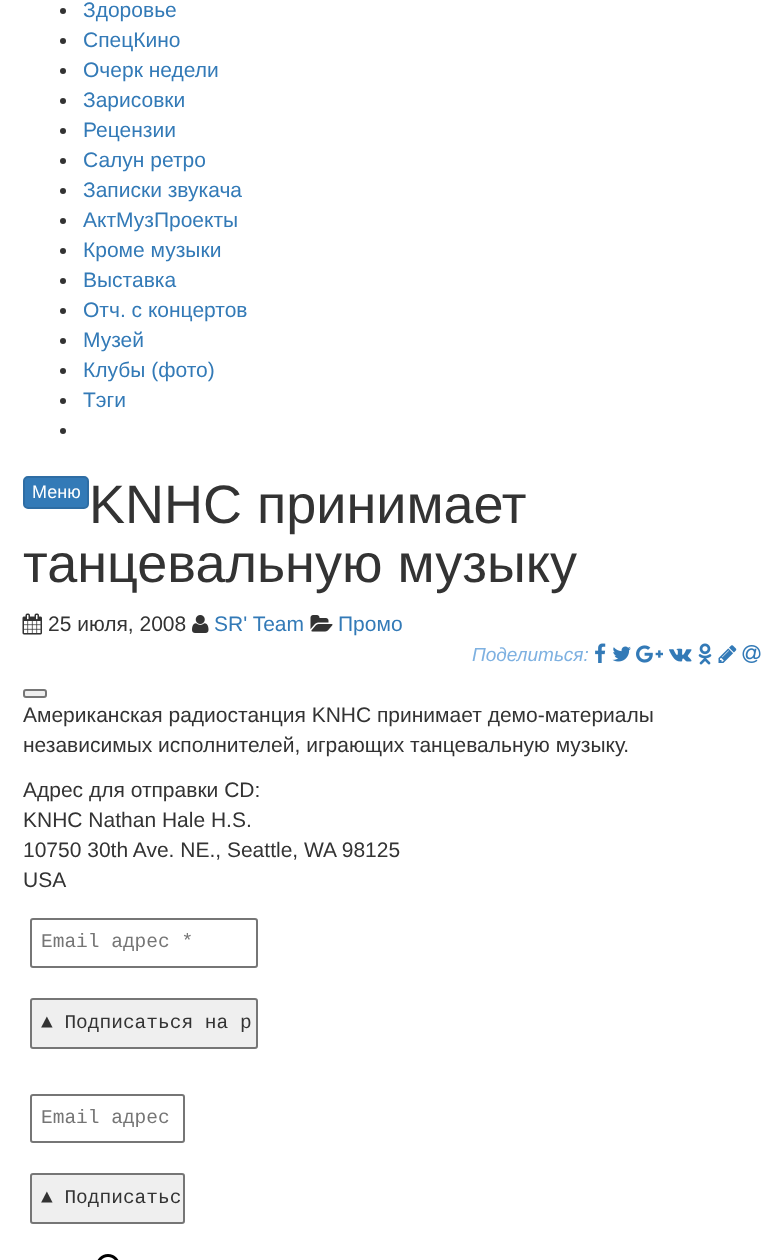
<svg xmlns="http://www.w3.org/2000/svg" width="782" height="1260">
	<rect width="100%" height="100%" fill="#FFFFFF" />
	<circle cx="63" cy="11" r="3" fill="#333333" />
	<text x="83" y="17" font-family="Liberation Sans" font-size="21" fill="#337AB7">Здоровье</text>
	<circle cx="63" cy="41" r="3" fill="#333333" />
	<text x="83" y="47" font-family="Liberation Sans" font-size="21" fill="#337AB7">СпецКино</text>
	<circle cx="63" cy="71" r="3" fill="#333333" />
	<text x="83" y="77" font-family="Liberation Sans" font-size="21" fill="#337AB7">Очерк недели</text>
	<circle cx="63" cy="101" r="3" fill="#333333" />
	<text x="83" y="107" font-family="Liberation Sans" font-size="21" fill="#337AB7">Зарисовки</text>
	<circle cx="63" cy="131" r="3" fill="#333333" />
	<text x="83" y="137" font-family="Liberation Sans" font-size="21" fill="#337AB7">Рецензии</text>
	<circle cx="63" cy="161" r="3" fill="#333333" />
	<text x="83" y="167" font-family="Liberation Sans" font-size="21" fill="#337AB7">Салун ретро</text>
	<circle cx="63" cy="191" r="3" fill="#333333" />
	<text x="83" y="197" font-family="Liberation Sans" font-size="21" fill="#337AB7">Записки звукача</text>
	<circle cx="63" cy="221" r="3" fill="#333333" />
	<text x="83" y="227" font-family="Liberation Sans" font-size="21" fill="#337AB7">АктМузПроекты</text>
	<circle cx="63" cy="251" r="3" fill="#333333" />
	<text x="83" y="257" font-family="Liberation Sans" font-size="21" fill="#337AB7">Кроме музыки</text>
	<circle cx="63" cy="281" r="3" fill="#333333" />
	<text x="83" y="287" font-family="Liberation Sans" font-size="21" fill="#337AB7">Выставка</text>
	<circle cx="63" cy="311" r="3" fill="#333333" />
	<text x="83" y="317" font-family="Liberation Sans" font-size="21" fill="#337AB7">Отч. с концертов</text>
	<circle cx="63" cy="341" r="3" fill="#333333" />
	<text x="83" y="347" font-family="Liberation Sans" font-size="21" fill="#337AB7">Музей</text>
	<circle cx="63" cy="371" r="3" fill="#333333" />
	<text x="83" y="377" font-family="Liberation Sans" font-size="21" fill="#337AB7">Клубы (фото)</text>
	<circle cx="63" cy="401" r="3" fill="#333333" />
	<text x="83" y="407" font-family="Liberation Sans" font-size="21" fill="#337AB7">Тэги</text>
	<circle cx="63" cy="431" r="3" fill="#333333" />
	<g font-family="Liberation Sans" font-size="54" fill="#333333">
		<text x="89" y="523">KNHC принимает</text>
		<text x="23" y="582">танцевальную музыку</text>
	</g>
	<image x="22" y="613" width="20" height="22" href="assets/img1.png" />
	<text x="48" y="631" font-family="Liberation Sans" font-size="21" fill="#333333">25 июля, 2008</text>
	<image x="192" y="615" width="17" height="18" href="assets/img2.png" />
	<text x="214" y="631" font-family="Liberation Sans" font-size="21" fill="#337AB7">SR' Team</text>
	<image x="310" y="615" width="23" height="17" href="assets/img3.png" />
	<text x="338" y="631" font-family="Liberation Sans" font-size="21" fill="#337AB7">Промо</text>
	<text x="472" y="661" font-family="Liberation Sans" font-size="19" font-style="italic" fill="#7EB1E1">Поделиться:</text>
	<image x="595" y="643" width="11" height="20" href="assets/img4.png" />
	<image x="612" y="646" width="19" height="16" href="assets/img5.png" />
	<image x="636" y="645" width="27" height="18" href="assets/img6.png" />
	<image x="669" y="648" width="23" height="14" href="assets/img7.png" />
	<image x="698" y="643" width="14" height="22" href="assets/img8.png" />
	<image x="718" y="645" width="19" height="18" href="assets/img9.png" />
	<image x="742" y="645" width="19" height="18" href="assets/img10.png" />
	<rect x="24" y="690" width="22" height="7" rx="2" fill="#EFEFEF" stroke="#767676" stroke-width="2" />
	<g font-family="Liberation Sans" font-size="21" fill="#333333">
		<text x="23" y="722">Американская радиостанция KNHC принимает демо-материалы</text>
		<text x="23" y="752">независимых исполнителей, играющих танцевальную музыку.</text>
		<text x="23" y="797">Адрес для отправки CD:</text>
		<text x="23" y="827">KNHC Nathan Hale H.S.</text>
		<text x="23" y="857">10750 30th Ave. NE., Seattle, WA 98125</text>
		<text x="23" y="887">USA</text>
	</g>
	<rect x="31" y="919" width="226" height="48" rx="2" fill="none" stroke="#767676" stroke-width="2" />
	<text x="41" y="947" font-family="Liberation Mono" font-size="19.5" fill="#757575">Email адрес *</text>
	<rect x="31" y="999" width="226" height="49" rx="2" fill="#EFEFEF" stroke="#767676" stroke-width="2" />
	<text x="41" y="1028" font-family="Liberation Mono" font-size="19.5" fill="#333333">▲ Подписаться на р</text>
	<rect x="31" y="1095" width="153" height="47" rx="2" fill="none" stroke="#767676" stroke-width="2" />
	<text x="41" y="1123" font-family="Liberation Mono" font-size="19.5" fill="#757575">Email адрес</text>
	<rect x="31" y="1174" width="153" height="49" rx="2" fill="#EFEFEF" stroke="#767676" stroke-width="2" />
	<text x="41" y="1203" font-family="Liberation Mono" font-size="19.5" fill="#333333">▲ Подписатьс</text>
	<image x="97" y="1254" width="22" height="6" href="assets/img11.png" />
	<rect x="24" y="477" width="64" height="31" rx="4" fill="#337AB7" stroke="#2E6DA4" stroke-width="2" />
	<text x="32" y="498" font-family="Liberation Sans" font-size="18" fill="#FFFFFF">Меню</text>
</svg>
